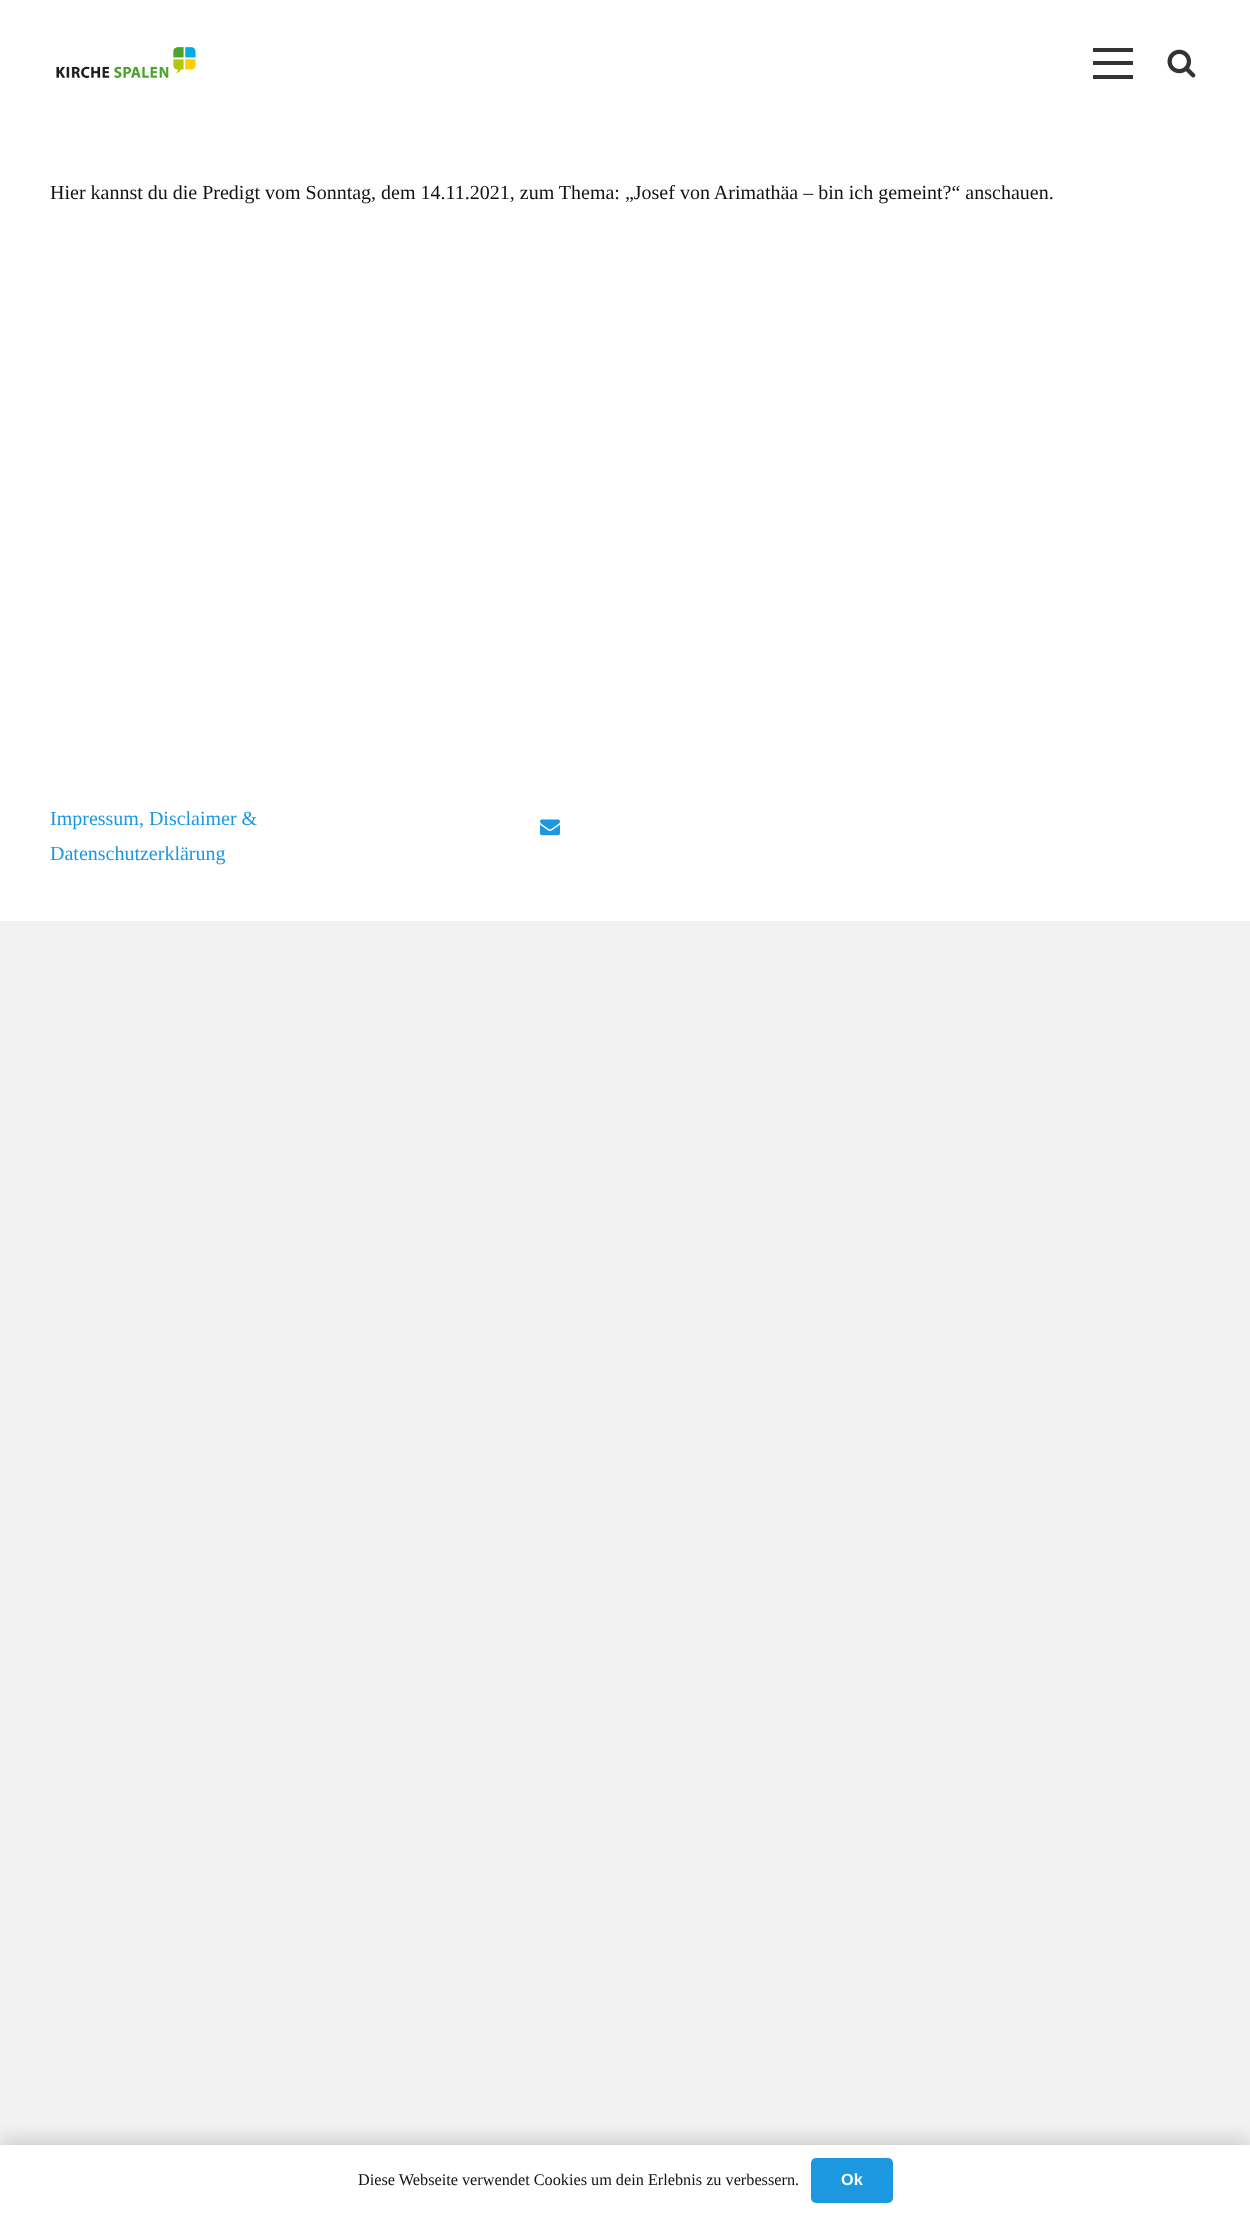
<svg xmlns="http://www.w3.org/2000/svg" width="1250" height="2214">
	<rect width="100%" height="100%" fill="#F2F2F2" />
	<rect x="0" y="0" width="1250" height="921" fill="#FFFFFF" />
	<image x="56" y="47" width="140" height="31" href="assets/img1.png" />
	<rect x="1093" y="61" width="40" height="4" fill="#333333" />
	<rect x="1093" y="48" width="40" height="4" fill="#333333" />
	<rect x="1093" y="75" width="40" height="4" fill="#333333" />
	<image x="1167" y="49" width="29" height="29" href="assets/img2.png" />
	<text x="50" y="199" font-family="Liberation Serif" font-size="20" fill="#121212">Hier kannst du die Predigt vom Sonntag, dem 14.11.2021, zum Thema: „Josef von Arimathäa – bin ich gemeint?“ anschauen.</text>
	<g font-family="Liberation Serif" font-size="20" fill="#1B98E0">
		<text x="50" y="825">Impressum, Disclaimer &amp;</text>
		<text x="50" y="860">Datenschutzerklärung</text>
	</g>
	<image x="540" y="819" width="20" height="17" href="assets/img3.png" />
	<rect x="0" y="2139" width="1250" height="70" fill="#000000" fill-opacity="0.15" filter="blur(9.5px)" />
	<rect x="0" y="2145" width="1250" height="69" fill="#FFFFFF" />
	<text x="358" y="2185" font-family="Liberation Serif" font-size="16.25" fill="#121212">Diese Webseite verwendet Cookies um dein Erlebnis zu verbessern.</text>
	<rect x="811" y="2158" width="82" height="45" rx="5" fill="#1B98E0" />
	<text x="841" y="2185" font-family="Liberation Sans" font-size="16.25" font-weight="700" fill="#FFFFFF">Ok</text>
</svg>
